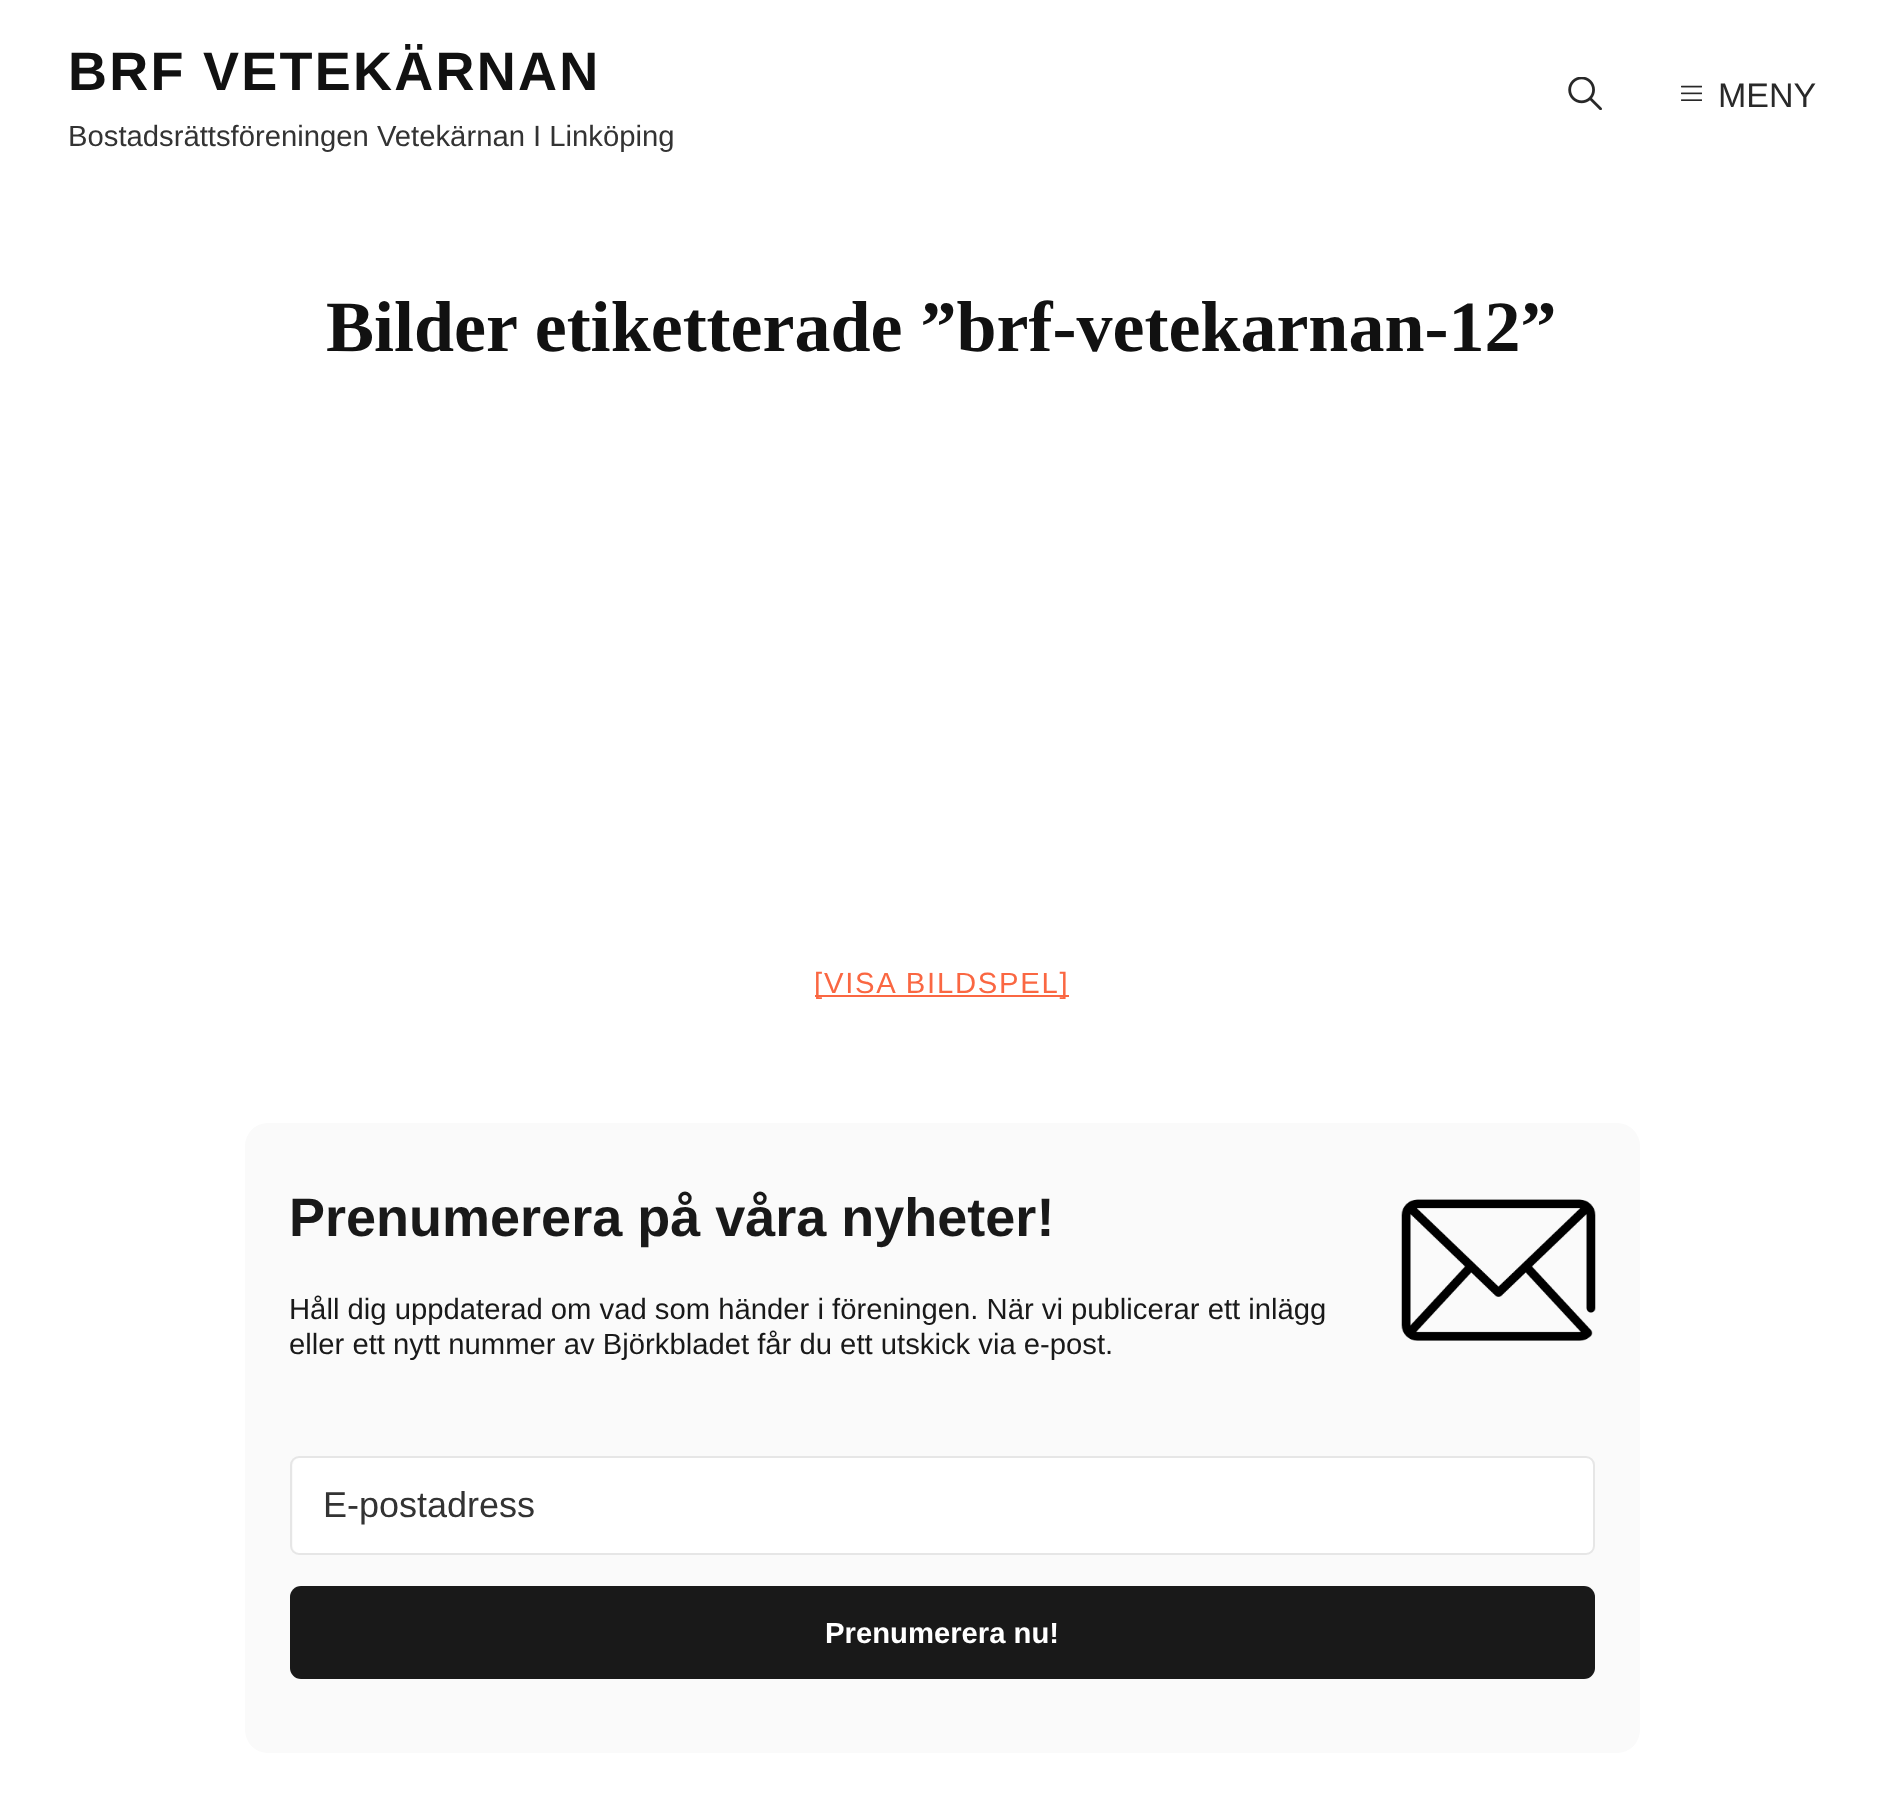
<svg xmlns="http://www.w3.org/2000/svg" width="1883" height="1817">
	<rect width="100%" height="100%" fill="#FFFFFF" />
	<text x="68" y="90" font-family="Liberation Sans" font-size="54" font-weight="700" letter-spacing="2.25" fill="#111111">BRF VETEKÄRNAN</text>
	<text x="68" y="146" font-family="Liberation Sans" font-size="29.25" fill="#333333">Bostadsrättsföreningen Vetekärnan I Linköping</text>
	<image x="1568" y="77" width="34" height="33" href="assets/img1.png" />
	<image x="1681" y="85" width="21" height="16" href="assets/img2.png" />
	<text x="1718" y="107" font-family="Liberation Sans" font-size="34" fill="#292929">MENY</text>
	<text x="326" y="351" font-family="Liberation Serif" font-size="72" font-weight="700" fill="#111111">Bilder etiketterade ”brf-vetekarnan-12”</text>
	<rect x="815" y="995" width="254" height="2" fill="#FA6742" />
	<text x="814" y="993" font-family="Liberation Sans" font-size="29.25" letter-spacing="1.75" fill="#FA6742">[VISA BILDSPEL]</text>
	<rect x="245" y="1123" width="1395" height="630" rx="23" fill="#FAFAFA" />
	<text x="289" y="1236" font-family="Liberation Sans" font-size="54" font-weight="700" fill="#191919">Prenumerera på våra nyheter!</text>
	<g font-family="Liberation Sans" font-size="29.25" fill="#191919">
		<text x="289" y="1319">Håll dig uppdaterad om vad som händer i föreningen. När vi publicerar ett inlägg</text>
		<text x="289" y="1354">eller ett nytt nummer av Björkbladet får du ett utskick via e-post.</text>
	</g>
	<image x="1401" y="1199" width="195" height="142" href="assets/img3.png" />
	<rect x="293" y="1458" width="1300" height="95" rx="7" fill="#FFFFFF" />
	<rect x="291" y="1457" width="1303" height="97" rx="8" fill="none" stroke="#E6E6E6" stroke-width="2" />
	<text x="323" y="1517" font-family="Liberation Sans" font-size="36" fill="#333333">E-postadress</text>
	<rect x="290" y="1586" width="1305" height="93" rx="11" fill="#191919" />
	<text x="825" y="1643" font-family="Liberation Sans" font-size="29.25" font-weight="700" fill="#FFFFFF">Prenumerera nu!</text>
</svg>
